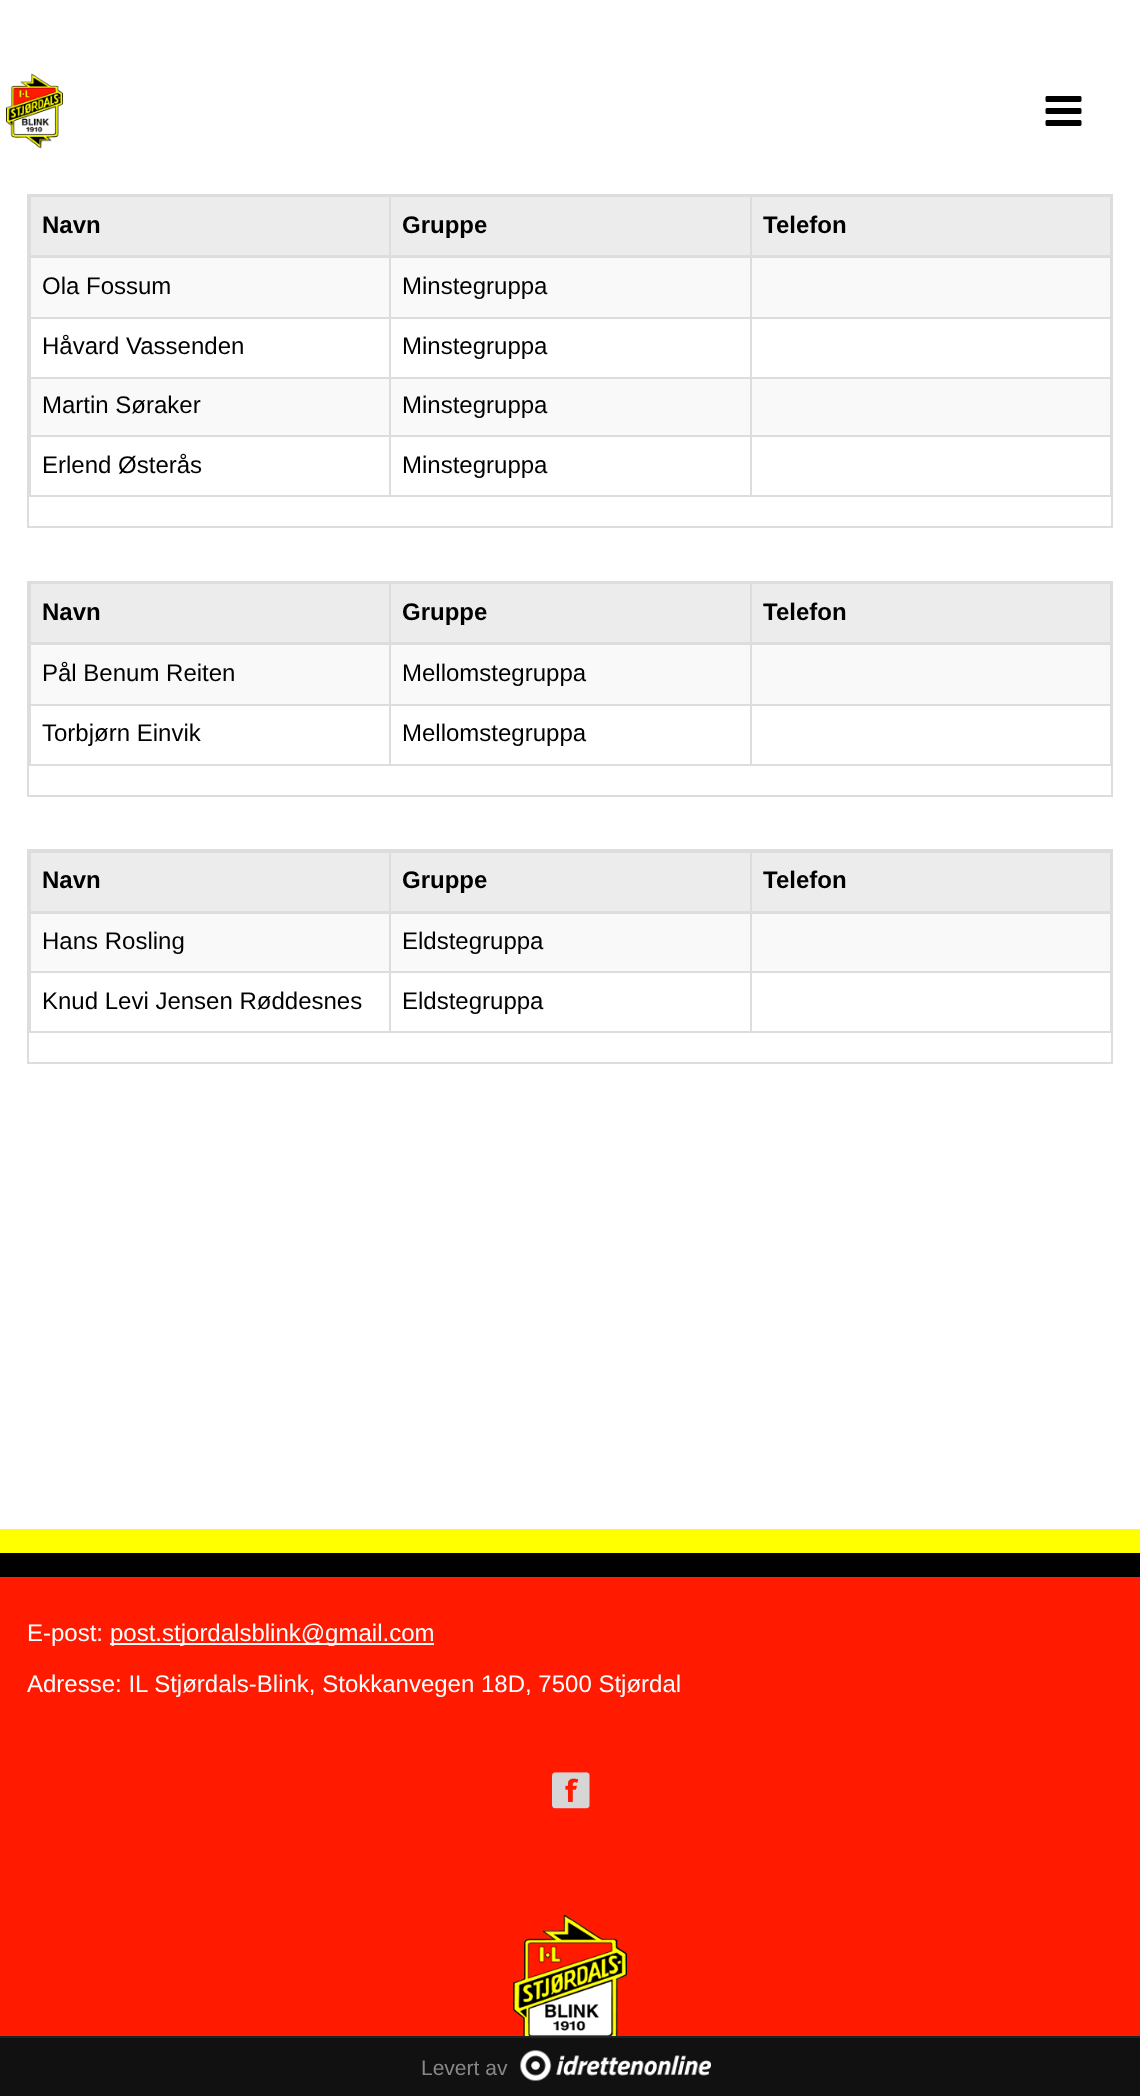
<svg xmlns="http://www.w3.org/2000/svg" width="1140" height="2096">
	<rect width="100%" height="100%" fill="#FFFFFF" />
	<image x="6" y="73" width="57" height="76" href="assets/img1.png" />
	<image x="1045" y="96" width="37" height="30" href="assets/img2.png" />
	<rect x="28" y="195" width="1084" height="332" fill="none" stroke="#DDDDDD" stroke-width="2" />
	<rect x="29" y="196" width="1083" height="1" fill="#DDDDDD" />
	<rect x="1110" y="195" width="1" height="302" fill="#DDDDDD" />
	<rect x="29" y="495" width="1083" height="2" fill="#DDDDDD" />
	<rect x="29" y="195" width="2" height="302" fill="#DDDDDD" />
	<rect x="31" y="197" width="358" height="58" fill="#ECECEC" />
	<text x="42" y="233" font-family="Liberation Sans" font-size="24" font-weight="700" fill="#000000">Navn</text>
	<rect x="391" y="197" width="359" height="58" fill="#ECECEC" />
	<text x="402" y="233" font-family="Liberation Sans" font-size="24" font-weight="700" fill="#000000">Gruppe</text>
	<rect x="752" y="197" width="358" height="58" fill="#ECECEC" />
	<rect x="31" y="258" width="1079" height="59" fill="#F9F9F9" />
	<rect x="31" y="379" width="1079" height="56" fill="#F9F9F9" />
	<rect x="750" y="435" width="2" height="62" fill="#DDDDDD" />
	<rect x="750" y="435" width="362" height="2" fill="#DDDDDD" />
	<rect x="750" y="377" width="2" height="60" fill="#DDDDDD" />
	<rect x="750" y="377" width="362" height="2" fill="#DDDDDD" />
	<rect x="750" y="317" width="2" height="61" fill="#DDDDDD" />
	<rect x="750" y="317" width="362" height="2" fill="#DDDDDD" />
	<rect x="750" y="195" width="2" height="123" fill="#DDDDDD" />
	<rect x="389" y="435" width="2" height="62" fill="#DDDDDD" />
	<rect x="389" y="435" width="363" height="2" fill="#DDDDDD" />
	<rect x="389" y="377" width="2" height="60" fill="#DDDDDD" />
	<rect x="389" y="377" width="363" height="2" fill="#DDDDDD" />
	<rect x="389" y="317" width="2" height="61" fill="#DDDDDD" />
	<rect x="389" y="317" width="363" height="2" fill="#DDDDDD" />
	<rect x="389" y="195" width="2" height="123" fill="#DDDDDD" />
	<rect x="29" y="255" width="1083" height="3" fill="#DDDDDD" />
	<text x="763" y="233" font-family="Liberation Sans" font-size="24" font-weight="700" fill="#000000">Telefon</text>
	<rect x="29" y="317" width="361" height="2" fill="#DDDDDD" />
	<g font-family="Liberation Sans" font-size="24" fill="#000000">
		<text x="42" y="294">Ola Fossum</text>
		<text x="402" y="294">Minstegruppa</text>
	</g>
	<rect x="29" y="377" width="361" height="2" fill="#DDDDDD" />
	<g font-family="Liberation Sans" font-size="24" fill="#000000">
		<text x="42" y="354">Håvard Vassenden</text>
		<text x="402" y="354">Minstegruppa</text>
	</g>
	<rect x="29" y="435" width="361" height="2" fill="#DDDDDD" />
	<g font-family="Liberation Sans" font-size="24" fill="#000000">
		<text x="42" y="413">Martin Søraker</text>
		<text x="402" y="413">Minstegruppa</text>
		<text x="42" y="473">Erlend Østerås</text>
		<text x="402" y="473">Minstegruppa</text>
	</g>
	<rect x="28" y="582" width="1084" height="214" fill="none" stroke="#DDDDDD" stroke-width="2" />
	<rect x="29" y="583" width="1083" height="1" fill="#DDDDDD" />
	<rect x="1110" y="582" width="1" height="183" fill="#DDDDDD" />
	<rect x="29" y="764" width="1083" height="2" fill="#DDDDDD" />
	<rect x="29" y="582" width="2" height="183" fill="#DDDDDD" />
	<rect x="31" y="584" width="358" height="58" fill="#ECECEC" />
	<text x="42" y="620" font-family="Liberation Sans" font-size="24" font-weight="700" fill="#000000">Navn</text>
	<rect x="391" y="584" width="359" height="58" fill="#ECECEC" />
	<text x="402" y="620" font-family="Liberation Sans" font-size="24" font-weight="700" fill="#000000">Gruppe</text>
	<rect x="752" y="584" width="358" height="58" fill="#ECECEC" />
	<rect x="31" y="645" width="1079" height="59" fill="#F9F9F9" />
	<rect x="750" y="704" width="2" height="61" fill="#DDDDDD" />
	<rect x="750" y="704" width="362" height="2" fill="#DDDDDD" />
	<rect x="750" y="582" width="2" height="123" fill="#DDDDDD" />
	<rect x="389" y="704" width="2" height="61" fill="#DDDDDD" />
	<rect x="389" y="704" width="363" height="2" fill="#DDDDDD" />
	<rect x="389" y="582" width="2" height="123" fill="#DDDDDD" />
	<rect x="29" y="642" width="1083" height="3" fill="#DDDDDD" />
	<text x="763" y="620" font-family="Liberation Sans" font-size="24" font-weight="700" fill="#000000">Telefon</text>
	<rect x="29" y="704" width="361" height="2" fill="#DDDDDD" />
	<g font-family="Liberation Sans" font-size="24" fill="#000000">
		<text x="42" y="681">Pål Benum Reiten</text>
		<text x="402" y="681">Mellomstegruppa</text>
		<text x="42" y="741">Torbjørn Einvik</text>
		<text x="402" y="741">Mellomstegruppa</text>
	</g>
	<rect x="28" y="850" width="1084" height="213" fill="none" stroke="#DDDDDD" stroke-width="2" />
	<rect x="29" y="851" width="1083" height="2" fill="#DDDDDD" />
	<rect x="1110" y="851" width="1" height="181" fill="#DDDDDD" />
	<rect x="29" y="1031" width="1083" height="2" fill="#DDDDDD" />
	<rect x="29" y="851" width="2" height="181" fill="#DDDDDD" />
	<rect x="31" y="853" width="358" height="58" fill="#ECECEC" />
	<text x="42" y="888" font-family="Liberation Sans" font-size="24" font-weight="700" fill="#000000">Navn</text>
	<rect x="391" y="853" width="359" height="58" fill="#ECECEC" />
	<text x="402" y="888" font-family="Liberation Sans" font-size="24" font-weight="700" fill="#000000">Gruppe</text>
	<rect x="752" y="853" width="358" height="58" fill="#ECECEC" />
	<rect x="31" y="914" width="1079" height="57" fill="#F9F9F9" />
	<rect x="750" y="971" width="2" height="61" fill="#DDDDDD" />
	<rect x="750" y="971" width="362" height="2" fill="#DDDDDD" />
	<rect x="750" y="851" width="2" height="121" fill="#DDDDDD" />
	<rect x="389" y="971" width="2" height="61" fill="#DDDDDD" />
	<rect x="389" y="971" width="363" height="2" fill="#DDDDDD" />
	<rect x="389" y="851" width="2" height="121" fill="#DDDDDD" />
	<rect x="29" y="911" width="1083" height="3" fill="#DDDDDD" />
	<text x="763" y="888" font-family="Liberation Sans" font-size="24" font-weight="700" fill="#000000">Telefon</text>
	<rect x="29" y="971" width="361" height="2" fill="#DDDDDD" />
	<g font-family="Liberation Sans" font-size="24" fill="#000000">
		<text x="42" y="949">Hans Rosling</text>
		<text x="402" y="949">Eldstegruppa</text>
		<text x="42" y="1009">Knud Levi Jensen Røddesnes</text>
		<text x="402" y="1009">Eldstegruppa</text>
	</g>
	<rect x="0" y="1529" width="1140" height="24" fill="#FFFF00" />
	<rect x="0" y="1553" width="1140" height="24" fill="#000000" />
	<rect x="0" y="1577" width="1140" height="459" fill="#FF1A00" />
	<text x="27" y="1641" font-family="Liberation Sans" font-size="24" fill="#FFFFFF">E-post:</text>
	<rect x="110" y="1643" width="324" height="2" fill="#FFFFFF" />
	<g font-family="Liberation Sans" font-size="24" fill="#FFFFFF">
		<text x="110" y="1641">post.stjordalsblink@gmail.com</text>
		<text x="27" y="1692">Adresse: IL Stjørdals-Blink, Stokkanvegen 18D, 7500 Stjørdal</text>
	</g>
	<image x="552" y="1772" width="38" height="37" href="assets/img3.png" />
	<image x="513" y="1914" width="114" height="122" href="assets/img4.png" />
	<rect x="0" y="2038" width="1140" height="58" fill="#111111" />
	<rect x="0" y="2036" width="1140" height="2" fill="#222222" />
	<text x="421" y="2075" font-family="Liberation Sans" font-size="21" fill="#888888">Levert av</text>
	<image x="520" y="2050" width="191" height="31" href="assets/img5.png" />
</svg>
